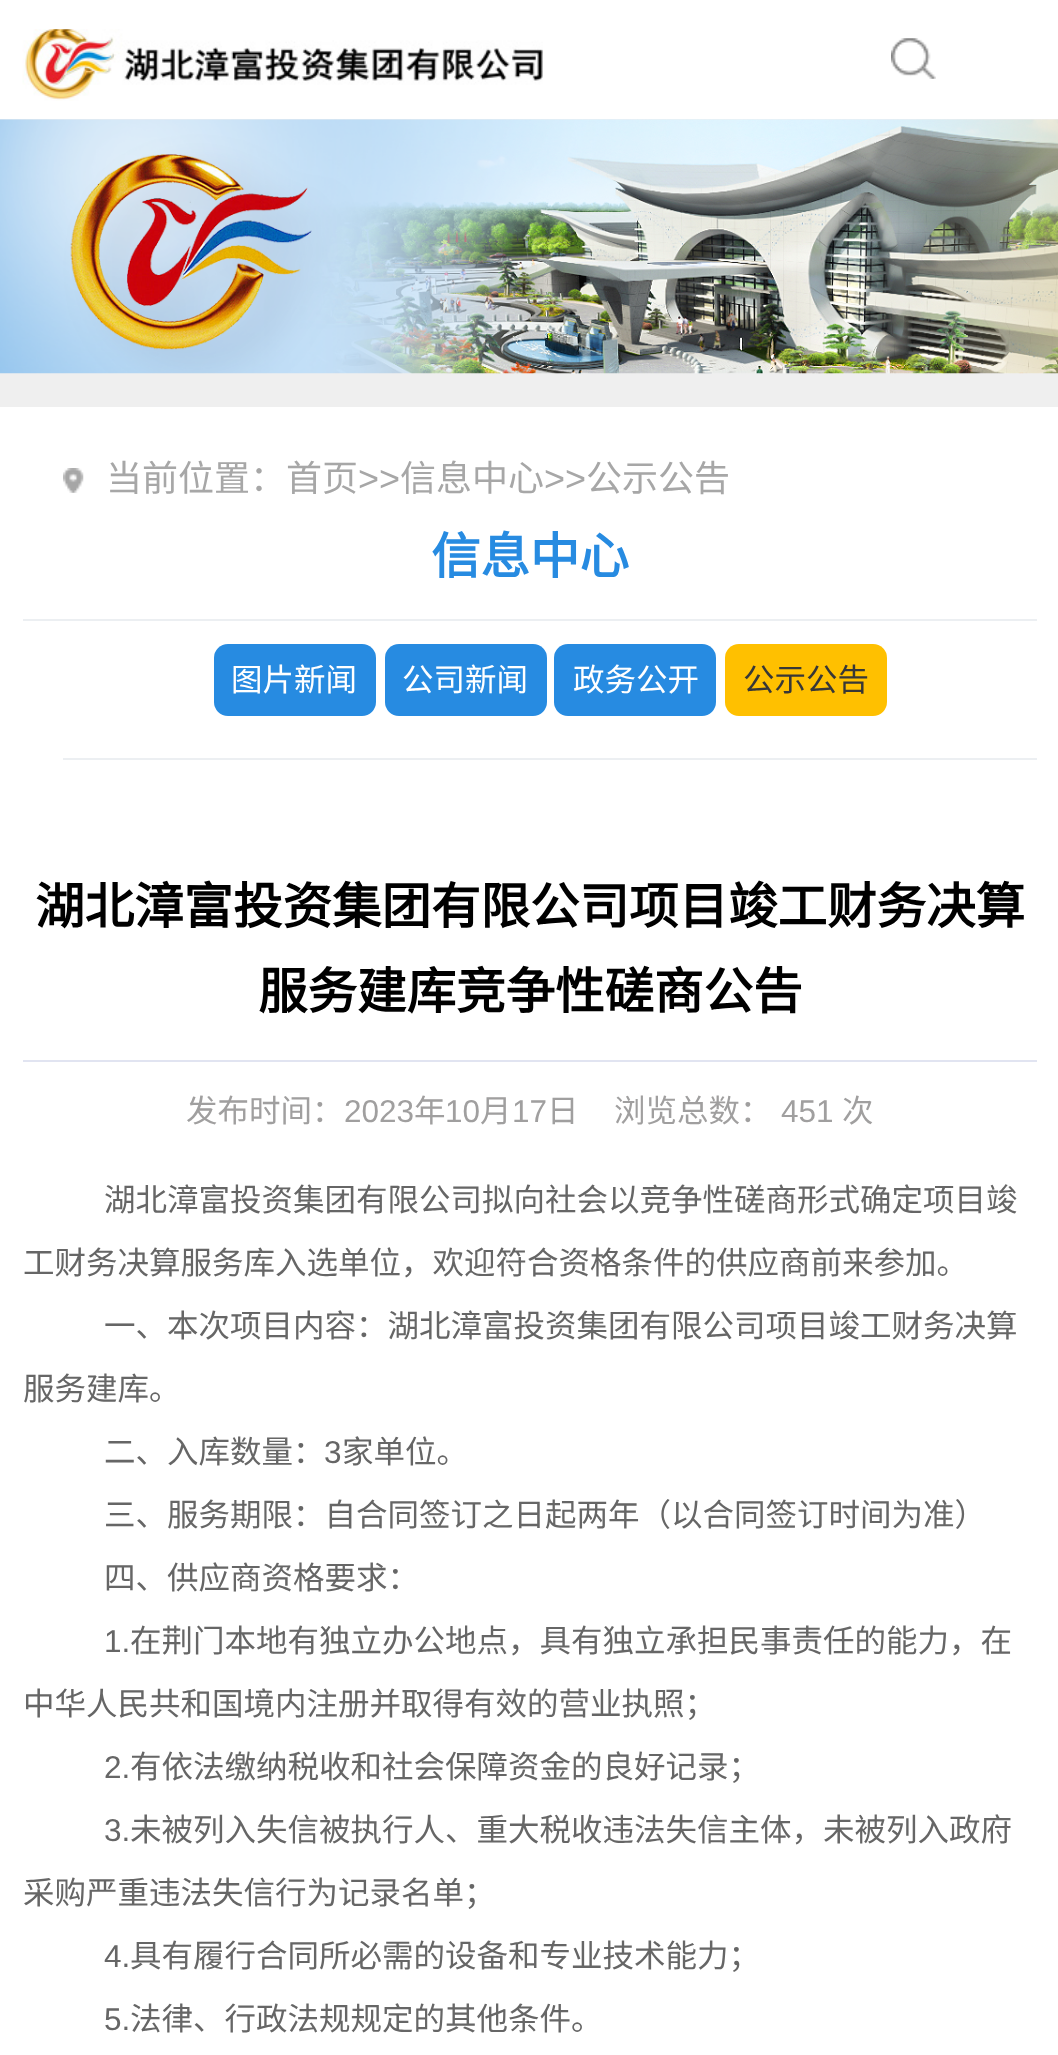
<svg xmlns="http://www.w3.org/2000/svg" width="1058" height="2055">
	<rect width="100%" height="100%" fill="#EFEFEF" />
	<rect x="0" y="0" width="1058" height="119" fill="#FFFFFF" />
	<image x="22" y="29" width="521" height="72" href="assets/img1.png" />
	<image x="891" y="38" width="45" height="41" href="assets/img2.png" />
	<image x="0" y="119" width="1058" height="255" href="assets/img3.png" />
	<rect x="0" y="407" width="1058" height="1648" fill="#FFFFFF" />
	<rect x="23" y="619" width="1014" height="2" fill="#ECEFF2" />
	<image x="63" y="468" width="21" height="25" href="assets/img4.png" />
	<text x="106" y="491" font-family="Noto Sans CJK SC" font-size="36" fill="#A7A7A7">当前位置：首页</text>
	<text x="358" y="491" font-family="Liberation Sans" font-size="36" fill="#A7A7A7">&gt;&gt;</text>
	<text x="400" y="491" font-family="Noto Sans CJK SC" font-size="36" fill="#A7A7A7">信息中心</text>
	<text x="544" y="491" font-family="Liberation Sans" font-size="36" fill="#A7A7A7">&gt;&gt;</text>
	<text x="586" y="491" font-family="Noto Sans CJK SC" font-size="36" fill="#A7A7A7">公示公告</text>
	<text x="431" y="574" font-family="Noto Sans CJK SC" font-size="49.5" font-weight="700" fill="#278BE1">信息中心</text>
	<rect x="63" y="758" width="974" height="2" fill="#ECEFF2" />
	<rect x="214" y="644" width="162" height="72" rx="14" fill="#278BE1" />
	<text x="231" y="691" font-family="Noto Sans CJK SC" font-size="31.5" fill="#FFFFFF">图片新闻</text>
	<rect x="385" y="644" width="162" height="72" rx="14" fill="#278BE1" />
	<text x="402" y="691" font-family="Noto Sans CJK SC" font-size="31.5" fill="#FFFFFF">公司新闻</text>
	<rect x="554" y="644" width="162" height="72" rx="14" fill="#278BE1" />
	<text x="573" y="691" font-family="Noto Sans CJK SC" font-size="31.5" fill="#FFFFFF">政务公开</text>
	<rect x="725" y="644" width="162" height="72" rx="14" fill="#FFC000" />
	<text x="743" y="691" font-family="Noto Sans CJK SC" font-size="31.5" fill="#373737">公示公告</text>
	<g font-family="Noto Sans CJK SC" font-size="49.5" font-weight="700" fill="#000000">
		<text x="35" y="924">湖北漳富投资集团有限公司项目竣工财务决算</text>
		<text x="258" y="1009">服务建库竞争性磋商公告</text>
	</g>
	<rect x="23" y="1060" width="1014" height="2" fill="#E1E4F1" />
	<text x="186" y="1122" font-family="Noto Sans CJK SC" font-size="31.5" fill="#A09F9F">发布时间：</text>
	<text x="344" y="1122" font-family="Liberation Sans" font-size="31.5" fill="#A09F9F">2023</text>
	<text x="414" y="1122" font-family="Noto Sans CJK SC" font-size="31.5" fill="#A09F9F">年</text>
	<text x="445" y="1122" font-family="Liberation Sans" font-size="31.5" fill="#A09F9F">10</text>
	<text x="480" y="1122" font-family="Noto Sans CJK SC" font-size="31.5" fill="#A09F9F">月</text>
	<text x="512" y="1122" font-family="Liberation Sans" font-size="31.5" fill="#A09F9F">17</text>
	<g font-family="Noto Sans CJK SC" font-size="31.5" fill="#A09F9F">
		<text x="547" y="1122">日</text>
		<text x="614" y="1122">浏览总数：</text>
	</g>
	<text x="781" y="1122" font-family="Liberation Sans" font-size="31.5" fill="#A09F9F">451</text>
	<text x="842" y="1122" font-family="Noto Sans CJK SC" font-size="31.5" fill="#A09F9F">次</text>
	<g font-family="Noto Sans CJK SC" font-size="31.5" fill="#666666">
		<text x="104" y="1211">湖北漳富投资集团有限公司拟向社会以竞争性磋商形式确定项目竣</text>
		<text x="23" y="1274">工财务决算服务库入选单位，欢迎符合资格条件的供应商前来参加。</text>
		<text x="104" y="1337">一、本次项目内容：湖北漳富投资集团有限公司项目竣工财务决算</text>
		<text x="23" y="1400">服务建库。</text>
		<text x="104" y="1463">二、入库数量：</text>
	</g>
	<text x="324" y="1463" font-family="Liberation Sans" font-size="31.5" fill="#666666">3</text>
	<g font-family="Noto Sans CJK SC" font-size="31.5" fill="#666666">
		<text x="342" y="1463">家单位。</text>
		<text x="104" y="1526">三、服务期限：自合同签订之日起两年（以合同签订时间为准）</text>
		<text x="104" y="1589">四、供应商资格要求：</text>
	</g>
	<text x="104" y="1652" font-family="Liberation Sans" font-size="31.5" fill="#666666">1.</text>
	<g font-family="Noto Sans CJK SC" font-size="31.5" fill="#666666">
		<text x="130" y="1652">在荆门本地有独立办公地点，具有独立承担民事责任的能力，在</text>
		<text x="23" y="1715">中华人民共和国境内注册并取得有效的营业执照；</text>
	</g>
	<text x="104" y="1778" font-family="Liberation Sans" font-size="31.5" fill="#666666">2.</text>
	<text x="130" y="1778" font-family="Noto Sans CJK SC" font-size="31.5" fill="#666666">有依法缴纳税收和社会保障资金的良好记录；</text>
	<text x="104" y="1841" font-family="Liberation Sans" font-size="31.5" fill="#666666">3.</text>
	<g font-family="Noto Sans CJK SC" font-size="31.5" fill="#666666">
		<text x="130" y="1841">未被列入失信被执行人、重大税收违法失信主体，未被列入政府</text>
		<text x="23" y="1904">采购严重违法失信行为记录名单；</text>
	</g>
	<text x="104" y="1967" font-family="Liberation Sans" font-size="31.5" fill="#666666">4.</text>
	<text x="130" y="1967" font-family="Noto Sans CJK SC" font-size="31.5" fill="#666666">具有履行合同所必需的设备和专业技术能力；</text>
	<text x="104" y="2030" font-family="Liberation Sans" font-size="31.5" fill="#666666">5.</text>
	<text x="130" y="2030" font-family="Noto Sans CJK SC" font-size="31.5" fill="#666666">法律、行政法规规定的其他条件。</text>
</svg>
